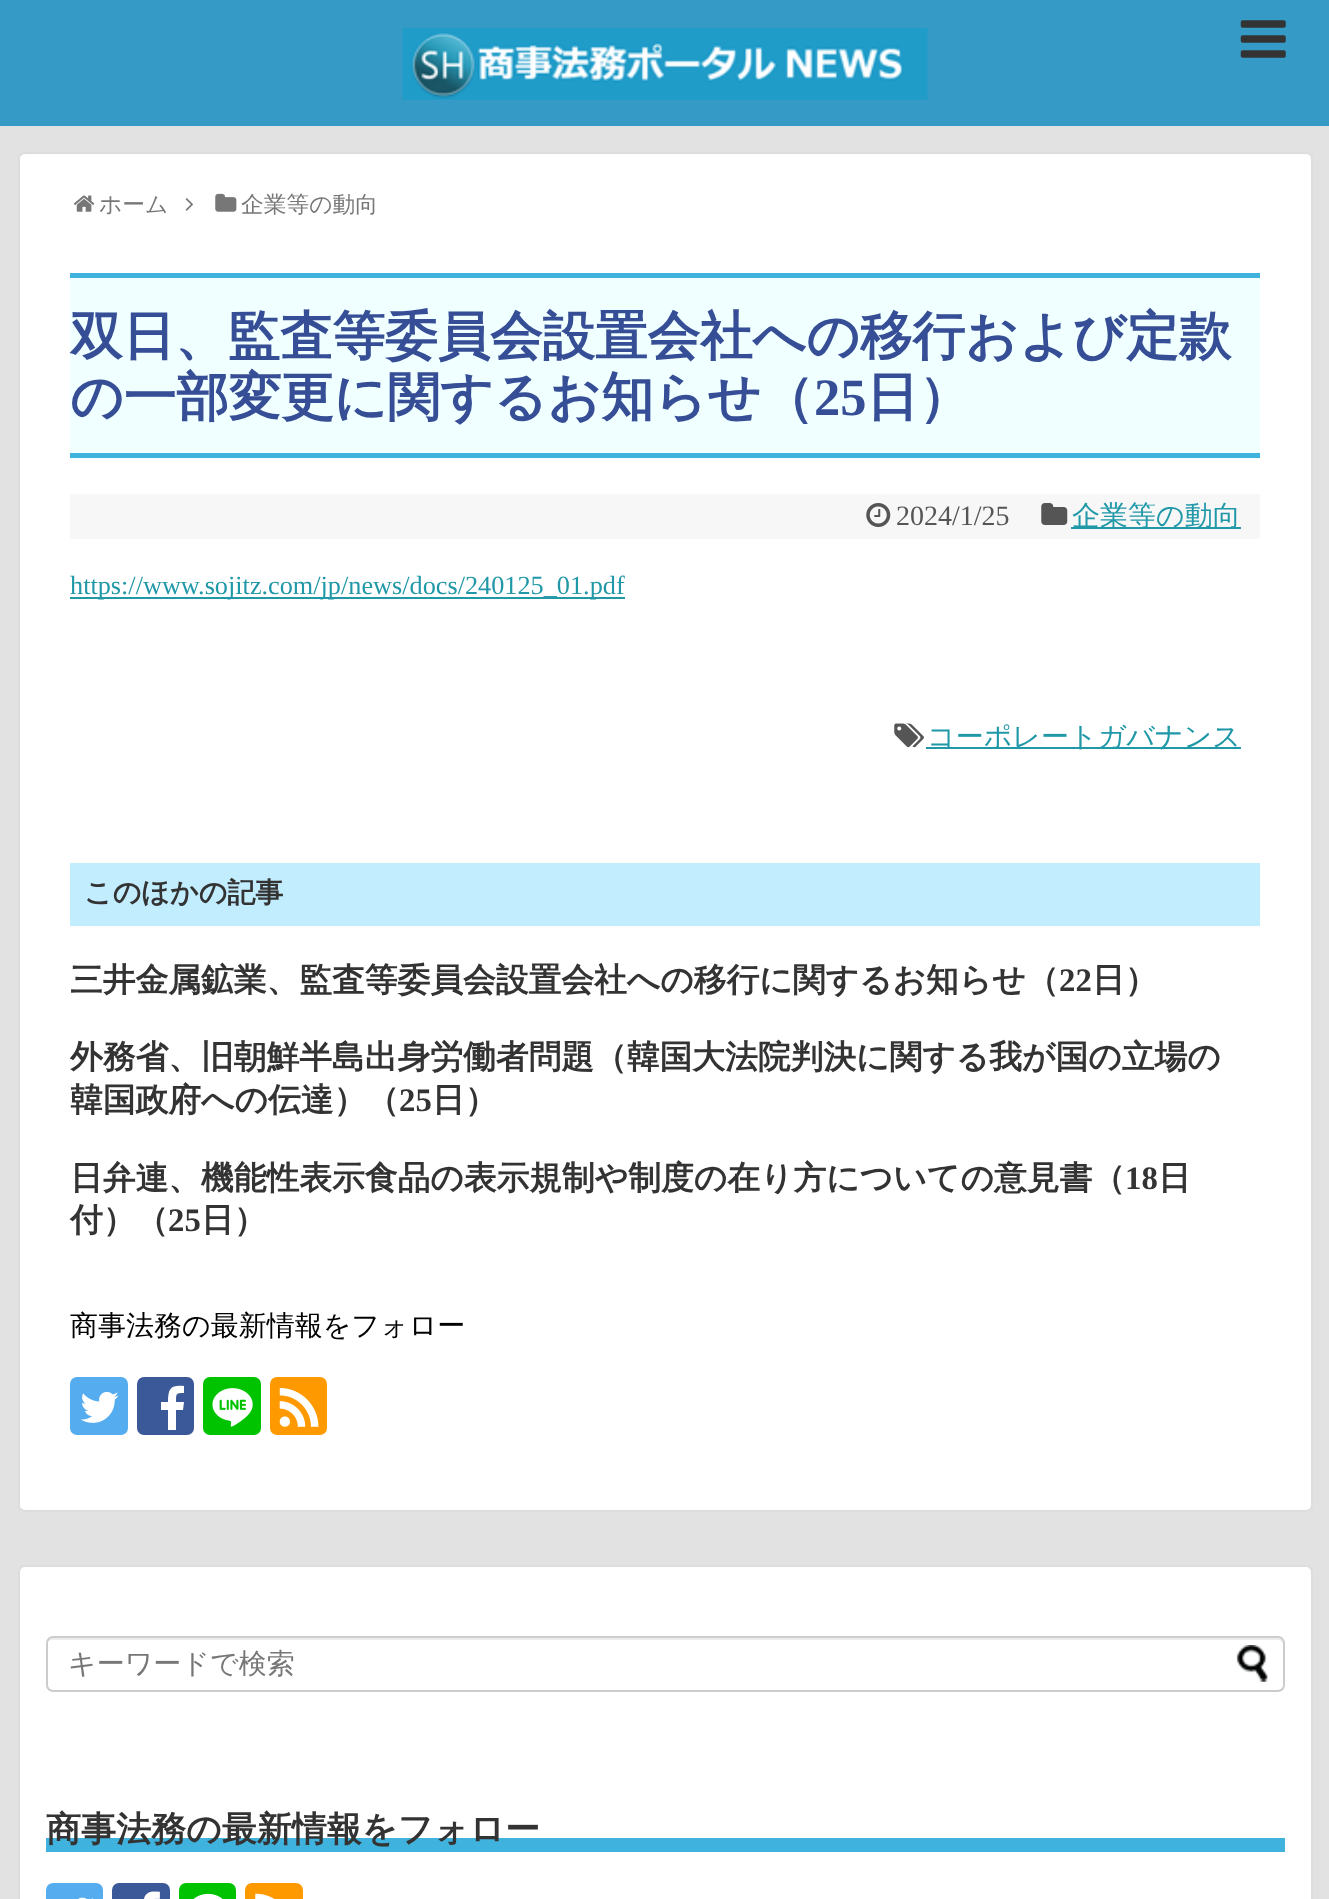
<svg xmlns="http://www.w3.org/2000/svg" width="1329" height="1899">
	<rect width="100%" height="100%" fill="#E2E2E2" />
	<rect x="0" y="0" width="1329" height="126" fill="#369AC6" />
	<image x="402" y="28" width="526" height="72" href="assets/img1.png" />
	<image x="1240" y="20" width="46" height="38" href="assets/img2.png" />
	<rect x="19" y="153" width="1293" height="1358" rx="6" fill="#FFFFFF" stroke="#DDDDDD" stroke-width="2" />
	<image x="73" y="195" width="22" height="17" href="assets/img3.png" />
	<text x="99" y="212" font-family="WenQuanYi Zen Hei" font-size="22.75" font-weight="500" fill="#777777">ホーム</text>
	<image x="185" y="198" width="8" height="13" href="assets/img4.png" />
	<image x="215" y="193" width="22" height="19" href="assets/img5.png" />
	<text x="241" y="212" font-family="WenQuanYi Zen Hei" font-size="22.75" font-weight="500" fill="#777777">企業等の動向</text>
	<rect x="70" y="278" width="1190" height="181" fill="#F0FFFF" />
	<rect x="70" y="273" width="1190" height="5" fill="#3FB3DD" />
	<rect x="70" y="453" width="1190" height="5" fill="#3FB3DD" />
	<g font-family="WenQuanYi Zen Hei" font-size="52.5" font-weight="700" fill="#364E96">
		<text x="70" y="354">双日、監査等委員会設置会社への移行および定款</text>
		<text x="70" y="415">の一部変更に関するお知らせ（</text>
	</g>
	<text x="814" y="415" font-family="Liberation Serif" font-size="52.5" font-weight="700" fill="#364E96">25</text>
	<text x="866" y="415" font-family="WenQuanYi Zen Hei" font-size="52.5" font-weight="700" fill="#364E96">日）</text>
	<rect x="70" y="494" width="1190" height="45" fill="#F7F7F7" />
	<image x="866" y="503" width="25" height="24" href="assets/img6.png" />
	<text x="896" y="525" font-family="Liberation Serif" font-size="28" fill="#555555">2024/1/25</text>
	<image x="1041" y="503" width="27" height="22" href="assets/img7.png" />
	<rect x="1071" y="527" width="170" height="2" fill="#2098A8" />
	<text x="1072" y="525" font-family="WenQuanYi Zen Hei" font-size="28" font-weight="500" fill="#2098A8">企業等の動向</text>
	<rect x="70" y="597" width="555" height="2" fill="#2098A8" />
	<text x="70" y="594" font-family="Liberation Serif" font-size="26.25" fill="#2098A8">https://www.sojitz.com/jp/news/docs/240125_01.pdf</text>
	<image x="894" y="723" width="30" height="25" href="assets/img8.png" />
	<rect x="926" y="747" width="315" height="2" fill="#2098A8" />
	<text x="927" y="746" font-family="WenQuanYi Zen Hei" font-size="28" font-weight="500" fill="#2098A8">コーポレートガバナンス</text>
	<rect x="70" y="863" width="1190" height="63" fill="#C2EDFF" />
	<text x="84" y="902" font-family="WenQuanYi Zen Hei" font-size="28" font-weight="700" fill="#333333">このほかの記事</text>
	<text x="70" y="991" font-family="WenQuanYi Zen Hei" font-size="32.75" font-weight="700" fill="#333333">三井金属鉱業、監査等委員会設置会社への移行に関するお知らせ（</text>
	<text x="1059" y="991" font-family="Liberation Serif" font-size="32.75" font-weight="700" fill="#333333">22</text>
	<g font-family="WenQuanYi Zen Hei" font-size="32.75" font-weight="700" fill="#333333">
		<text x="1092" y="991">日）</text>
		<text x="70" y="1068">外務省、旧朝鮮半島出身労働者問題（韓国大法院判決に関する我が国の立場の</text>
		<text x="70" y="1111">韓国政府への伝達）（</text>
	</g>
	<text x="399" y="1111" font-family="Liberation Serif" font-size="32.75" font-weight="700" fill="#333333">25</text>
	<g font-family="WenQuanYi Zen Hei" font-size="32.75" font-weight="700" fill="#333333">
		<text x="432" y="1111">日）</text>
		<text x="70" y="1189">日弁連、機能性表示食品の表示規制や制度の在り方についての意見書（</text>
	</g>
	<text x="1125" y="1189" font-family="Liberation Serif" font-size="32.75" font-weight="700" fill="#333333">18</text>
	<g font-family="WenQuanYi Zen Hei" font-size="32.75" font-weight="700" fill="#333333">
		<text x="1158" y="1189">日</text>
		<text x="70" y="1231">付）（</text>
	</g>
	<text x="168" y="1231" font-family="Liberation Serif" font-size="32.75" font-weight="700" fill="#333333">25</text>
	<text x="201" y="1231" font-family="WenQuanYi Zen Hei" font-size="32.75" font-weight="700" fill="#333333">日）</text>
	<text x="70" y="1335" font-family="WenQuanYi Zen Hei" font-size="28" font-weight="500" fill="#000000">商事法務の最新情報をフォロー</text>
	<rect x="70" y="1377" width="58" height="58" rx="7" fill="#55ACEE" />
	<image x="80" y="1391" width="39" height="32" href="assets/img9.png" />
	<rect x="137" y="1377" width="57" height="58" rx="7" fill="#3B5998" />
	<path d="M176 1430V1410H183L184 1402H176C176 1393 176 1393 184 1393V1386C171 1385 168 1388 168 1402H161V1410H168V1430Z" fill="#FFFFFF" />
	<rect x="203" y="1377" width="58" height="58" rx="7" fill="#00C300" />
	<image x="212" y="1388" width="41" height="39" href="assets/img10.png" />
	<rect x="270" y="1377" width="57" height="58" rx="7" fill="#FE9900" />
	<image x="279" y="1388" width="40" height="39" href="assets/img11.png" />
	<rect x="19" y="1566" width="1293" height="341" rx="6" fill="#FFFFFF" stroke="#DDDDDD" stroke-width="2" />
	<path d="M52 1640H1278C1280 1640 1283 1642 1283 1645V1643C1283 1640 1281 1638 1278 1638H52C49 1638 47 1640 47 1643V1645C47 1642 50 1640 52 1640Z" fill="#ECECEC" />
	<rect x="47" y="1637" width="1237" height="54" rx="6" fill="none" stroke="#CCCCCC" stroke-width="2" />
	<text x="68" y="1673" font-family="WenQuanYi Zen Hei" font-size="28" font-weight="500" fill="#777777">キーワードで検索</text>
	<image x="1236" y="1645" width="32" height="37" href="assets/img12.png" />
	<rect x="46" y="1838" width="1239" height="14" fill="#3FB3DD" />
	<text x="46" y="1841" font-family="WenQuanYi Zen Hei" font-size="35" font-weight="700" fill="#333333">商事法務の最新情報をフォロー</text>
	<rect x="46" y="1883" width="57" height="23" rx="7" fill="#55ACEE" />
	<image x="78" y="1897" width="15" height="2" href="assets/img13.png" />
	<rect x="112" y="1883" width="58" height="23" rx="7" fill="#3B5998" />
	<image x="144" y="1891" width="16" height="8" href="assets/img14.png" />
	<rect x="179" y="1883" width="57" height="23" rx="7" fill="#00C300" />
	<image x="193" y="1893" width="30" height="6" href="assets/img15.png" />
	<rect x="245" y="1883" width="58" height="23" rx="7" fill="#FE9900" />
	<image x="255" y="1893" width="20" height="6" href="assets/img16.png" />
</svg>
